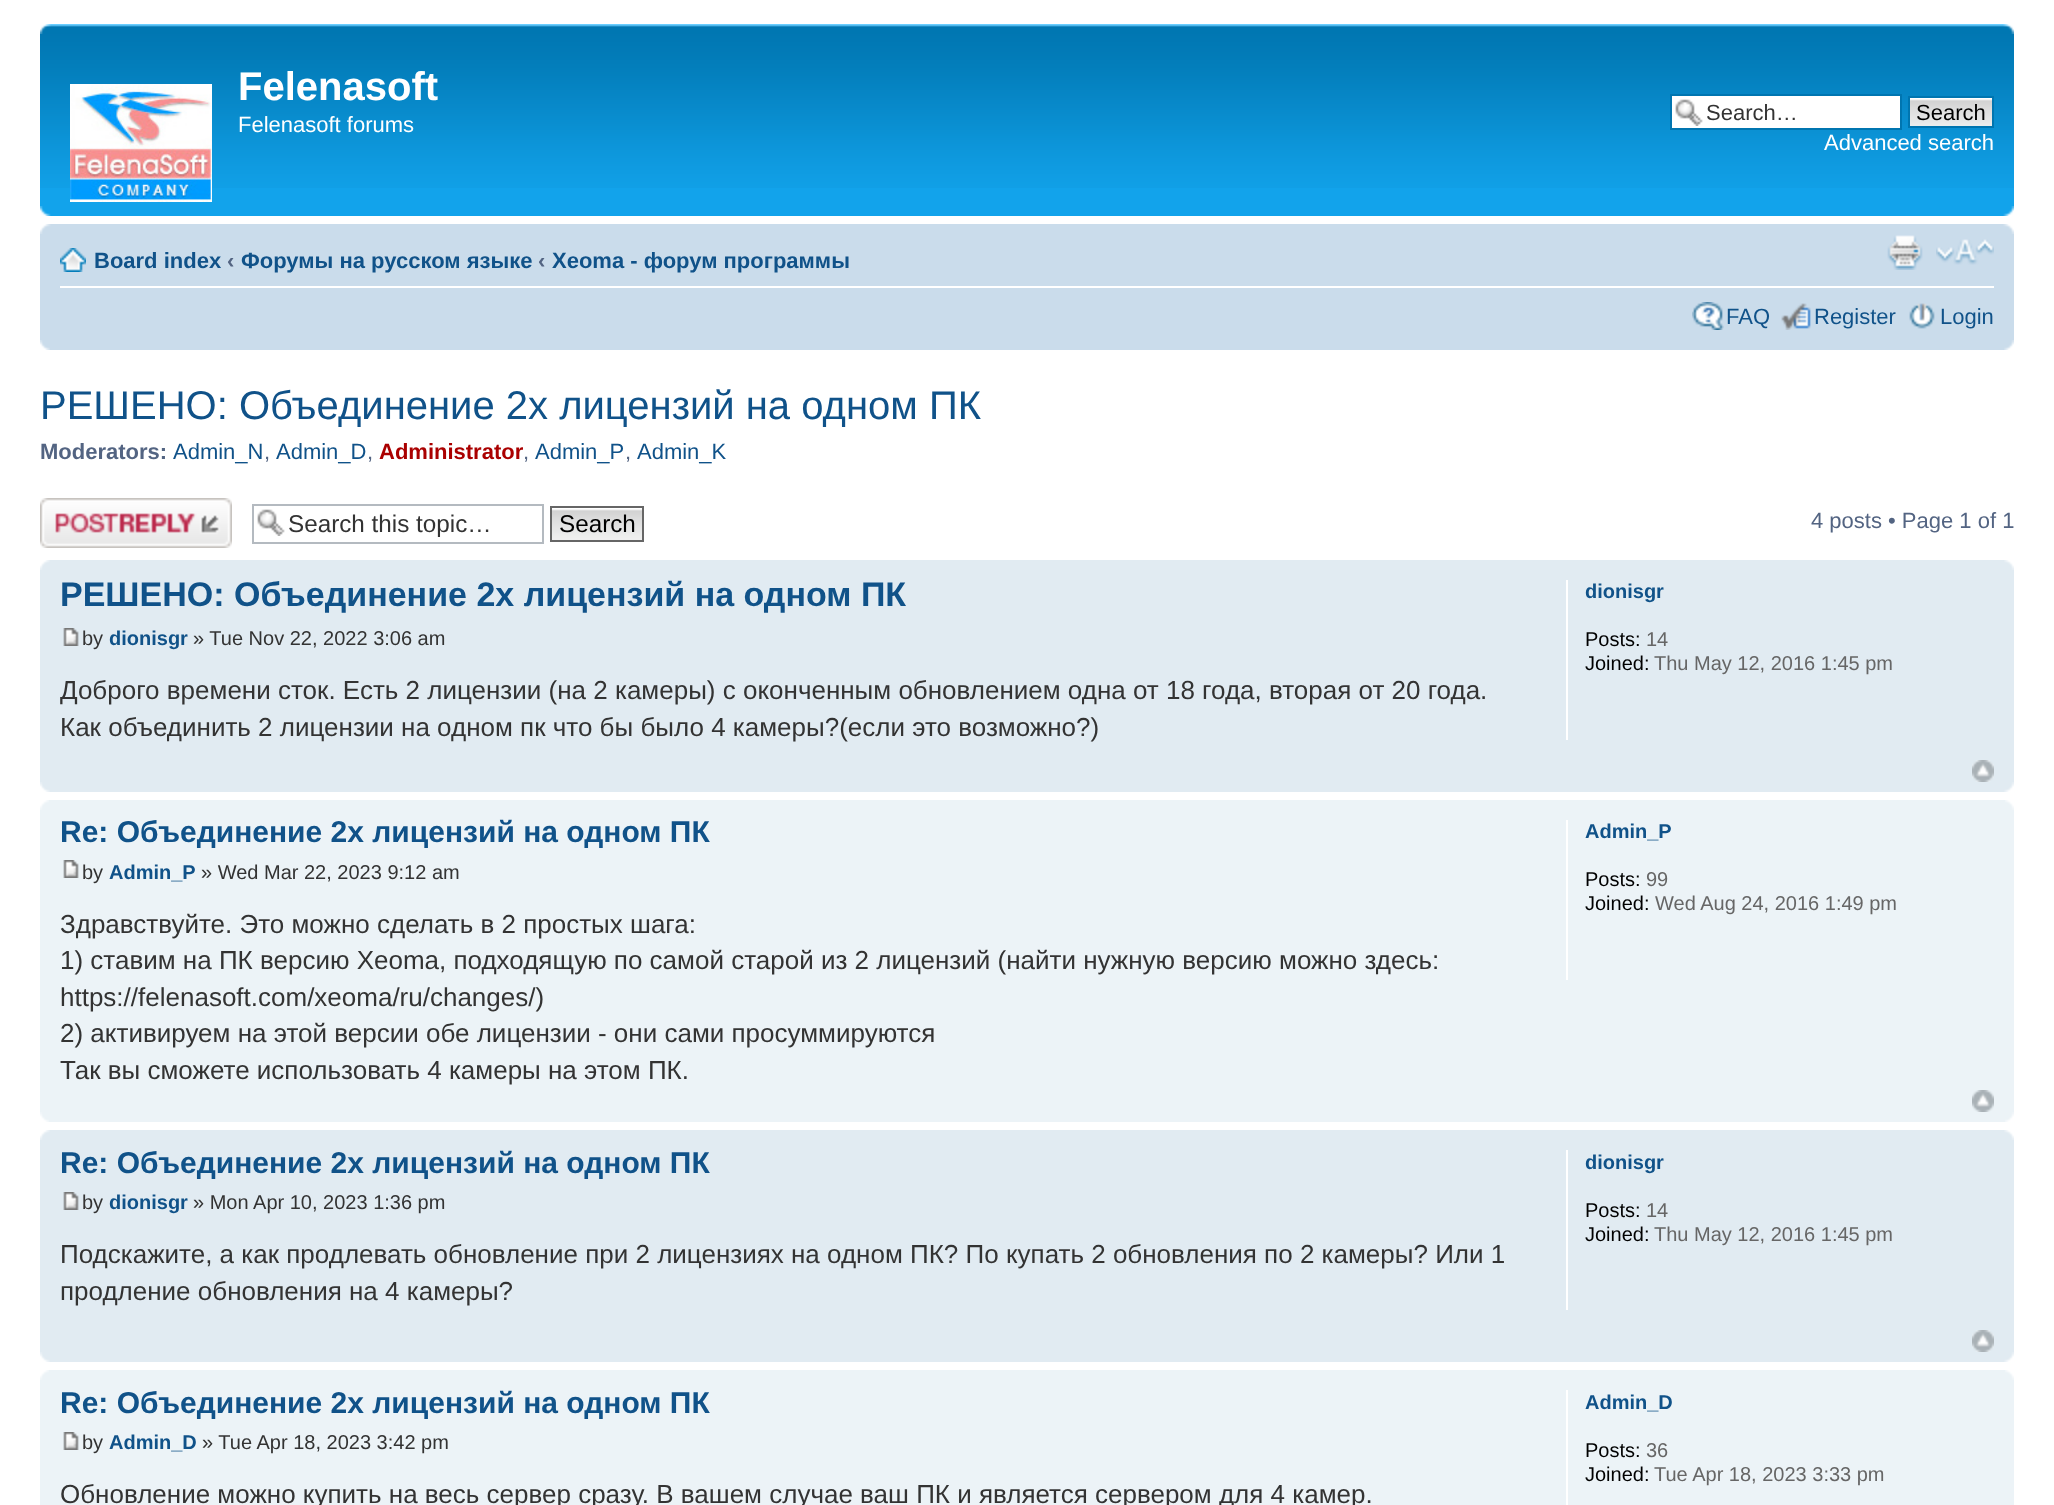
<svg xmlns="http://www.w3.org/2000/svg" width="2054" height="1505">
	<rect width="100%" height="100%" fill="#FFFFFF" />
	<rect x="40" y="188" width="1974" height="28" fill="#12A3EB" />
	<image x="40" y="24" width="1974" height="164" href="assets/img1.png" />
	<image x="40" y="24" width="11" height="10" href="assets/img2.png" />
	<image x="2003" y="24" width="11" height="10" href="assets/img3.png" />
	<image x="70" y="84" width="142" height="118" href="assets/img4.png" />
	<text x="238" y="100" font-family="Liberation Sans" font-size="40" font-weight="700" fill="#FFFFFF">Felenasoft</text>
	<text x="238" y="132" font-family="Liberation Sans" font-size="22" fill="#FFFFFF">Felenasoft forums</text>
	<rect x="1672" y="96" width="228" height="32" fill="#FFFFFF" />
	<image x="1675" y="99" width="28" height="27" href="assets/img5.png" />
	<rect x="1671" y="95" width="230" height="34" fill="none" stroke="#0075B0" stroke-width="2" />
	<text x="1706" y="120" font-family="Liberation Sans" font-size="22" fill="#333333">Search…</text>
	<image x="1910" y="98" width="82" height="28" href="assets/img6.png" />
	<rect x="1909" y="97" width="84" height="30" fill="none" stroke="#0075B0" stroke-width="2" />
	<text x="1916" y="120" font-family="Liberation Sans" font-size="22" fill="#000000">Search</text>
	<text x="1824" y="150" font-family="Liberation Sans" font-size="22" fill="#FFFFFF">Advanced search</text>
	<image x="40" y="206" width="11" height="10" href="assets/img7.png" />
	<image x="2003" y="206" width="11" height="10" href="assets/img8.png" />
	<rect x="40" y="224" width="1974" height="126" fill="#CADCEB" />
	<image x="40" y="224" width="11" height="10" href="assets/img9.png" />
	<image x="2003" y="224" width="11" height="10" href="assets/img10.png" />
	<rect x="60" y="286" width="1934" height="2" fill="#FFFFFF" />
	<image x="60" y="248" width="26" height="24" href="assets/img11.png" />
	<text x="94" y="268" font-family="Liberation Sans" font-size="22" font-weight="700" fill="#105289">Board index</text>
	<text x="227" y="268" font-family="Liberation Sans" font-size="22" font-weight="700" fill="#536482">‹</text>
	<text x="241" y="268" font-family="Liberation Sans" font-size="22" font-weight="700" fill="#105289">Форумы на русском языке</text>
	<text x="538" y="268" font-family="Liberation Sans" font-size="22" font-weight="700" fill="#536482">‹</text>
	<text x="552" y="268" font-family="Liberation Sans" font-size="22" font-weight="700" fill="#105289">Xeoma - форум программы</text>
	<image x="1887" y="235" width="36" height="35" href="assets/img12.png" />
	<image x="1936" y="239" width="58" height="26" href="assets/img13.png" />
	<image x="1692" y="302" width="32" height="28" href="assets/img14.png" />
	<text x="1726" y="324" font-family="Liberation Sans" font-size="22" fill="#105289">FAQ</text>
	<image x="1781" y="303" width="30" height="27" href="assets/img15.png" />
	<text x="1814" y="324" font-family="Liberation Sans" font-size="22" fill="#105289">Register</text>
	<image x="1909" y="303" width="26" height="26" href="assets/img16.png" />
	<text x="1940" y="324" font-family="Liberation Sans" font-size="22" fill="#105289">Login</text>
	<image x="40" y="340" width="10" height="10" href="assets/img17.png" />
	<image x="2004" y="340" width="10" height="10" href="assets/img18.png" />
	<text x="40" y="419" font-family="Liberation Sans" font-size="40" fill="#105289">РЕШЕНО: Объединение 2х лицензий на одном ПК</text>
	<text x="40" y="459" font-family="Liberation Sans" font-size="22" font-weight="700" fill="#536482">Moderators:</text>
	<text x="173" y="459" font-family="Liberation Sans" font-size="22" fill="#105289">Admin_N</text>
	<text x="264" y="459" font-family="Liberation Sans" font-size="22" fill="#536482">,</text>
	<text x="276" y="459" font-family="Liberation Sans" font-size="22" fill="#105289">Admin_D</text>
	<text x="367" y="459" font-family="Liberation Sans" font-size="22" fill="#536482">,</text>
	<text x="379" y="459" font-family="Liberation Sans" font-size="22" font-weight="700" fill="#AA0000">Administrator</text>
	<text x="523" y="459" font-family="Liberation Sans" font-size="22" fill="#536482">,</text>
	<text x="535" y="459" font-family="Liberation Sans" font-size="22" fill="#105289">Admin_P</text>
	<text x="625" y="459" font-family="Liberation Sans" font-size="22" fill="#536482">,</text>
	<text x="637" y="459" font-family="Liberation Sans" font-size="22" fill="#105289">Admin_K</text>
	<image x="40" y="498" width="192" height="50" href="assets/img19.png" />
	<image x="257" y="509" width="28" height="27" href="assets/img5.png" />
	<rect x="253" y="505" width="290" height="38" fill="none" stroke="#B4BAC0" stroke-width="2" />
	<text x="288" y="532" font-family="Liberation Sans" font-size="24.25" fill="#333333">Search this topic…</text>
	<image x="552" y="508" width="90" height="32" href="assets/img20.png" />
	<rect x="551" y="507" width="92" height="34" fill="none" stroke="#666666" stroke-width="2" />
	<text x="559" y="532" font-family="Liberation Sans" font-size="24.25" fill="#000000">Search</text>
	<text x="1811" y="528" font-family="Liberation Sans" font-size="22" fill="#536482">4 posts • Page 1 of 1</text>
	<rect x="40" y="560" width="1974" height="232" fill="#E1EBF2" />
	<image x="40" y="560" width="10" height="10" href="assets/img21.png" />
	<image x="2004" y="560" width="10" height="10" href="assets/img22.png" />
	<text x="60" y="606" font-family="Liberation Sans" font-size="34" font-weight="700" fill="#105289">РЕШЕНО: Объединение 2х лицензий на одном ПК</text>
	<image x="63" y="628" width="16" height="18" href="assets/img23.png" />
	<text x="82" y="645" font-family="Liberation Sans" font-size="20" fill="#333333">by</text>
	<text x="109" y="645" font-family="Liberation Sans" font-size="20" font-weight="700" fill="#105289">dionisgr</text>
	<text x="193" y="645" font-family="Liberation Sans" font-size="20" fill="#333333">» Tue Nov 22, 2022 3:06 am</text>
	<g font-family="Liberation Sans" font-size="26" fill="#333333">
		<text x="60" y="699">Доброго времени сток. Есть 2 лицензии (на 2 камеры) с оконченным обновлением одна от 18 года, вторая от 20 года.</text>
		<text x="60" y="736">Как объединить 2 лицензии на одном пк что бы было 4 камеры?(если это возможно?)</text>
	</g>
	<rect x="1566" y="580" width="2" height="160" fill="#FFFFFF" />
	<text x="1585" y="598" font-family="Liberation Sans" font-size="20" font-weight="700" fill="#105289">dionisgr</text>
	<text x="1585" y="646" font-family="Liberation Sans" font-size="20" fill="#000000">Posts:</text>
	<text x="1646" y="646" font-family="Liberation Sans" font-size="20" fill="#666666">14</text>
	<text x="1585" y="670" font-family="Liberation Sans" font-size="20" fill="#000000">Joined:</text>
	<text x="1654" y="670" font-family="Liberation Sans" font-size="20" fill="#666666">Thu May 12, 2016 1:45 pm</text>
	<image x="1972" y="760" width="22" height="22" href="assets/img24.png" />
	<image x="40" y="782" width="10" height="10" href="assets/img25.png" />
	<image x="2004" y="782" width="10" height="10" href="assets/img26.png" />
	<rect x="40" y="800" width="1974" height="322" fill="#ECF3F7" />
	<image x="40" y="800" width="9" height="10" href="assets/img27.png" />
	<image x="2005" y="800" width="9" height="10" href="assets/img28.png" />
	<text x="60" y="842" font-family="Liberation Sans" font-size="30" font-weight="700" fill="#105289">Re: Объединение 2х лицензий на одном ПК</text>
	<image x="63" y="860" width="16" height="18" href="assets/img29.png" />
	<text x="82" y="879" font-family="Liberation Sans" font-size="20" fill="#333333">by</text>
	<text x="109" y="879" font-family="Liberation Sans" font-size="20" font-weight="700" fill="#105289">Admin_P</text>
	<text x="201" y="879" font-family="Liberation Sans" font-size="20" fill="#333333">» Wed Mar 22, 2023 9:12 am</text>
	<g font-family="Liberation Sans" font-size="26" fill="#333333">
		<text x="60" y="933">Здравствуйте. Это можно сделать в 2 простых шага:</text>
		<text x="60" y="969">1) ставим на ПК версию Xeoma, подходящую по самой старой из 2 лицензий (найти нужную версию можно здесь:</text>
		<text x="60" y="1006">https://felenasoft.com/xeoma/ru/changes/)</text>
		<text x="60" y="1042">2) активируем на этой версии обе лицензии - они сами просуммируются</text>
		<text x="60" y="1079">Так вы сможете использовать 4 камеры на этом ПК.</text>
	</g>
	<rect x="1566" y="820" width="2" height="160" fill="#FFFFFF" />
	<text x="1585" y="838" font-family="Liberation Sans" font-size="20" font-weight="700" fill="#105289">Admin_P</text>
	<text x="1585" y="886" font-family="Liberation Sans" font-size="20" fill="#000000">Posts:</text>
	<text x="1646" y="886" font-family="Liberation Sans" font-size="20" fill="#666666">99</text>
	<text x="1585" y="910" font-family="Liberation Sans" font-size="20" fill="#000000">Joined:</text>
	<text x="1655" y="910" font-family="Liberation Sans" font-size="20" fill="#666666">Wed Aug 24, 2016 1:49 pm</text>
	<image x="1972" y="1090" width="22" height="22" href="assets/img30.png" />
	<image x="40" y="1112" width="9" height="10" href="assets/img31.png" />
	<image x="2005" y="1112" width="9" height="10" href="assets/img32.png" />
	<rect x="40" y="1130" width="1974" height="232" fill="#E1EBF2" />
	<image x="40" y="1130" width="10" height="10" href="assets/img21.png" />
	<image x="2004" y="1130" width="10" height="10" href="assets/img22.png" />
	<text x="60" y="1173" font-family="Liberation Sans" font-size="30" font-weight="700" fill="#105289">Re: Объединение 2х лицензий на одном ПК</text>
	<image x="63" y="1192" width="16" height="18" href="assets/img23.png" />
	<text x="82" y="1209" font-family="Liberation Sans" font-size="20" fill="#333333">by</text>
	<text x="109" y="1209" font-family="Liberation Sans" font-size="20" font-weight="700" fill="#105289">dionisgr</text>
	<text x="193" y="1209" font-family="Liberation Sans" font-size="20" fill="#333333">» Mon Apr 10, 2023 1:36 pm</text>
	<g font-family="Liberation Sans" font-size="26" fill="#333333">
		<text x="60" y="1263">Подскажите, а как продлевать обновление при 2 лицензиях на одном ПК? По купать 2 обновления по 2 камеры? Или 1</text>
		<text x="60" y="1300">продление обновления на 4 камеры?</text>
	</g>
	<rect x="1566" y="1150" width="2" height="160" fill="#FFFFFF" />
	<text x="1585" y="1169" font-family="Liberation Sans" font-size="20" font-weight="700" fill="#105289">dionisgr</text>
	<text x="1585" y="1217" font-family="Liberation Sans" font-size="20" fill="#000000">Posts:</text>
	<text x="1646" y="1217" font-family="Liberation Sans" font-size="20" fill="#666666">14</text>
	<text x="1585" y="1241" font-family="Liberation Sans" font-size="20" fill="#000000">Joined:</text>
	<text x="1654" y="1241" font-family="Liberation Sans" font-size="20" fill="#666666">Thu May 12, 2016 1:45 pm</text>
	<image x="1972" y="1330" width="22" height="22" href="assets/img24.png" />
	<image x="40" y="1352" width="10" height="10" href="assets/img25.png" />
	<image x="2004" y="1352" width="10" height="10" href="assets/img26.png" />
	<rect x="40" y="1370" width="1974" height="135" fill="#ECF3F7" />
	<image x="40" y="1370" width="9" height="10" href="assets/img27.png" />
	<image x="2005" y="1370" width="9" height="10" href="assets/img28.png" />
	<text x="60" y="1413" font-family="Liberation Sans" font-size="30" font-weight="700" fill="#105289">Re: Объединение 2х лицензий на одном ПК</text>
	<image x="63" y="1432" width="16" height="18" href="assets/img29.png" />
	<text x="82" y="1449" font-family="Liberation Sans" font-size="20" fill="#333333">by</text>
	<text x="109" y="1449" font-family="Liberation Sans" font-size="20" font-weight="700" fill="#105289">Admin_D</text>
	<text x="202" y="1449" font-family="Liberation Sans" font-size="20" fill="#333333">» Tue Apr 18, 2023 3:42 pm</text>
	<text x="60" y="1503" font-family="Liberation Sans" font-size="26" fill="#333333">Обновление можно купить на весь сервер сразу. В вашем случае ваш ПК и является сервером для 4 камер.</text>
	<rect x="1566" y="1390" width="2" height="115" fill="#FFFFFF" />
	<text x="1585" y="1409" font-family="Liberation Sans" font-size="20" font-weight="700" fill="#105289">Admin_D</text>
	<text x="1585" y="1457" font-family="Liberation Sans" font-size="20" fill="#000000">Posts:</text>
	<text x="1646" y="1457" font-family="Liberation Sans" font-size="20" fill="#666666">36</text>
	<text x="1585" y="1481" font-family="Liberation Sans" font-size="20" fill="#000000">Joined:</text>
	<text x="1654" y="1481" font-family="Liberation Sans" font-size="20" fill="#666666">Tue Apr 18, 2023 3:33 pm</text>
</svg>
